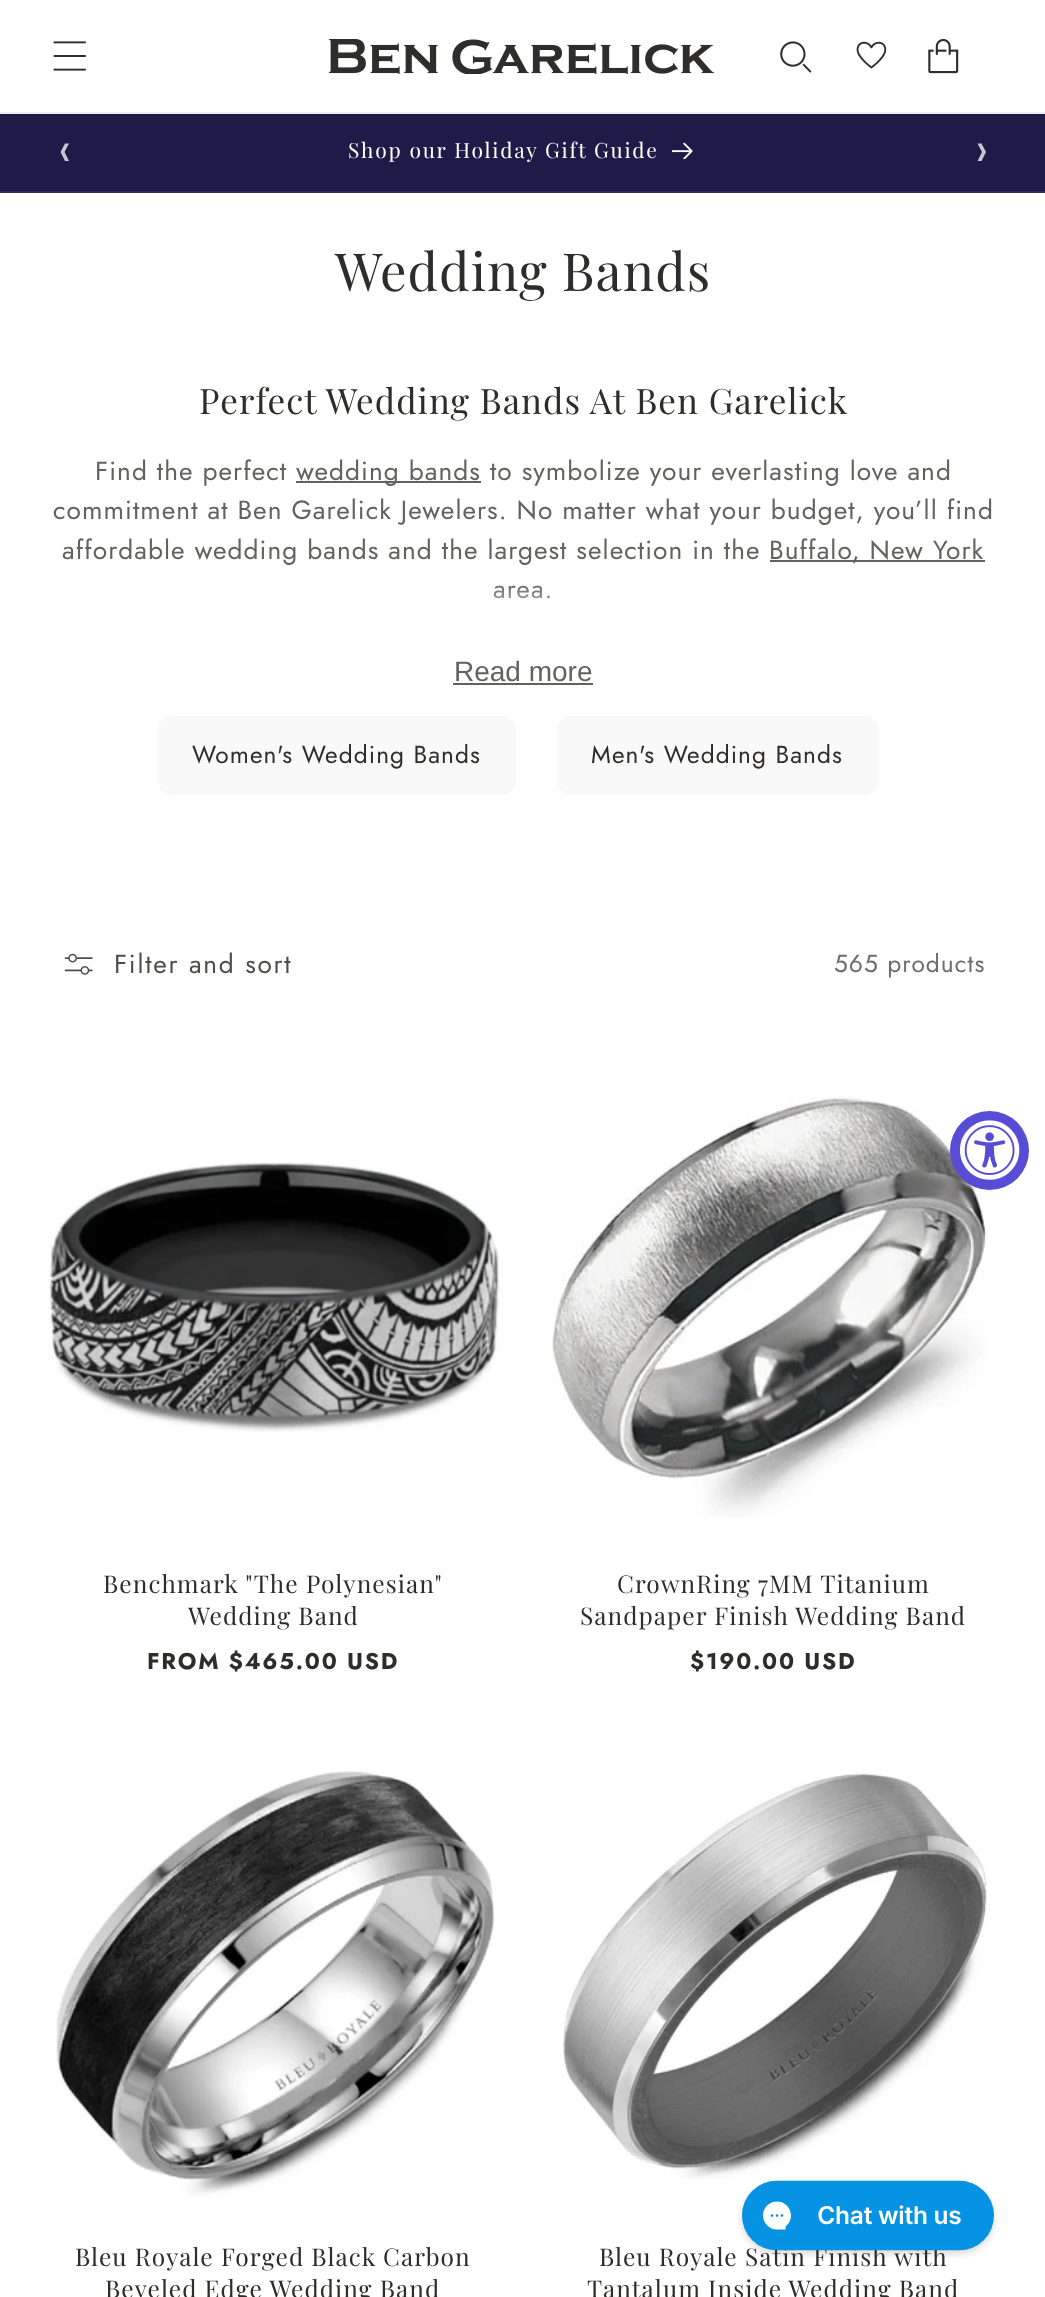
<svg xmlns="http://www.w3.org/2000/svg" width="1045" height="2297">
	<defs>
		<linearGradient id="g1" gradientUnits="userSpaceOnUse" x1="523" y1="584" x2="523" y2="690"><stop offset="0" stop-color="#FFFFFF" stop-opacity="0" /><stop offset="0.4" stop-color="#FFFFFF" /></linearGradient>
	</defs>
	<rect width="100%" height="100%" fill="#FFFFFF" />
	<rect x="0" y="112" width="1045" height="2" fill="#EEEEEE" />
	<image x="53" y="41" width="33" height="30" href="assets/img1.png" />
	<image x="329" y="39" width="385" height="35" href="assets/img2.png" />
	<image x="780" y="41" width="32" height="32" href="assets/img3.png" />
	<image x="856" y="41" width="31" height="28" href="assets/img4.png" />
	<image x="928" y="38" width="31" height="36" href="assets/img5.png" />
	<rect x="0" y="114" width="1045" height="77" fill="#1E1B48" />
	<rect x="0" y="191" width="1045" height="2" fill="#302D57" />
	<path d="M64.5 152L69 161H65L60.5 152L65 143.5H69Z" fill="#C7C6D1" />
	<text x="348" y="158" font-family="Playfair Display" font-size="21" letter-spacing="1.75" fill="#FFFFFF">Shop our Holiday Gift Guide</text>
	<image x="672" y="142" width="21" height="17" href="assets/img6.png" />
	<path d="M982 152L977.5 143.5H981.5L986 152L981.5 161H977.5Z" fill="#C7C6D1" />
	<text x="335" y="291" font-family="Playfair Display" font-size="52.5" letter-spacing="1.05" fill="#2F2D2A">Wedding Bands</text>
	<text x="199" y="414" font-family="Playfair Display" font-size="35" letter-spacing="1.05" fill="#2F2D2A">Perfect Wedding Bands At Ben Garelick</text>
	<text x="95" y="480" font-family="Jost" font-size="26.25" letter-spacing="1.05" fill="#63625F">Find the perfect</text>
	<rect x="296" y="481" width="185" height="2" fill="#63625F" />
	<g font-family="Jost" font-size="26.25" letter-spacing="1.05" fill="#63625F">
		<text x="296" y="480">wedding bands</text>
		<text x="490" y="480">to symbolize your everlasting love and</text>
		<text x="53" y="519">commitment at Ben Garelick Jewelers. No matter what your budget, you’ll find</text>
		<text x="62" y="559">affordable wedding bands and the largest selection in the</text>
	</g>
	<rect x="770" y="560" width="215" height="2" fill="#63625F" />
	<g font-family="Jost" font-size="26.25" letter-spacing="1.05" fill="#63625F">
		<text x="769" y="559">Buffalo, New York</text>
		<text x="493" y="598">area.</text>
	</g>
	<rect x="493" y="586" width="57" height="13" fill="url(#g1)" />
	<text x="454" y="681" font-family="Liberation Sans" font-size="28" fill="#63625F">Read more</text>
	<rect x="453" y="683" width="140" height="2" fill="#63625F" />
	<rect x="158" y="716" width="358" height="79" rx="14" fill="#F9F9F9" />
	<text x="192" y="763" font-family="Jost" font-size="24.5" letter-spacing="1.05" fill="#2F2D2A">Women's Wedding Bands</text>
	<rect x="557" y="716" width="322" height="79" rx="14" fill="#F9F9F9" />
	<text x="591" y="763" font-family="Jost" font-size="24.5" letter-spacing="1.05" fill="#2F2D2A">Men's Wedding Bands</text>
	<image x="64" y="953" width="29" height="22" href="assets/img7.png" />
	<text x="114" y="973" font-family="Jost" font-size="26.25" letter-spacing="1.75" fill="#4E4D4A">Filter and sort</text>
	<text x="834" y="972" font-family="Jost" font-size="24.5" letter-spacing="1.05" fill="#6D6C6A">565 products</text>
	<image x="47" y="1162" width="455" height="270" href="assets/img8.png" />
	<g font-family="Playfair Display" font-size="24.5" letter-spacing="1.05" fill="#2F2D2A">
		<text x="103" y="1593">Benchmark "The Polynesian"</text>
		<text x="188" y="1625">Wedding Band</text>
	</g>
	<text x="147" y="1669" font-family="Jost" font-size="22.75" font-weight="700" letter-spacing="1.75" fill="#2F2D2A">FROM $465.00 USD</text>
	<image x="551" y="1096" width="436" height="422" href="assets/img9.png" />
	<g font-family="Playfair Display" font-size="24.5" letter-spacing="1.05" fill="#2F2D2A">
		<text x="617" y="1593">CrownRing 7MM Titanium</text>
		<text x="580" y="1625">Sandpaper Finish Wedding Band</text>
	</g>
	<text x="690" y="1669" font-family="Jost" font-size="22.75" font-weight="700" letter-spacing="1.75" fill="#2F2D2A">$190.00 USD</text>
	<image x="54" y="1771" width="441" height="426" href="assets/img10.png" />
	<g font-family="Playfair Display" font-size="24.5" letter-spacing="1.05" fill="#2F2D2A">
		<text x="75" y="2266">Bleu Royale Forged Black Carbon</text>
		<text x="105" y="2298">Beveled Edge Wedding Band</text>
	</g>
	<image x="563" y="1773" width="424" height="406" href="assets/img11.png" />
	<g font-family="Playfair Display" font-size="24.5" letter-spacing="1.05" fill="#2F2D2A">
		<text x="599" y="2266">Bleu Royale Satin Finish with</text>
		<text x="587" y="2298">Tantalum Inside Wedding Band</text>
	</g>
	<circle cx="989.5" cy="1150.5" r="39.5" fill="#574CD5" />
	<image x="959" y="1120" width="61" height="60" href="assets/img12.png" />
	<image x="738" y="2180" width="260" height="78" href="assets/img13.png" />
</svg>
